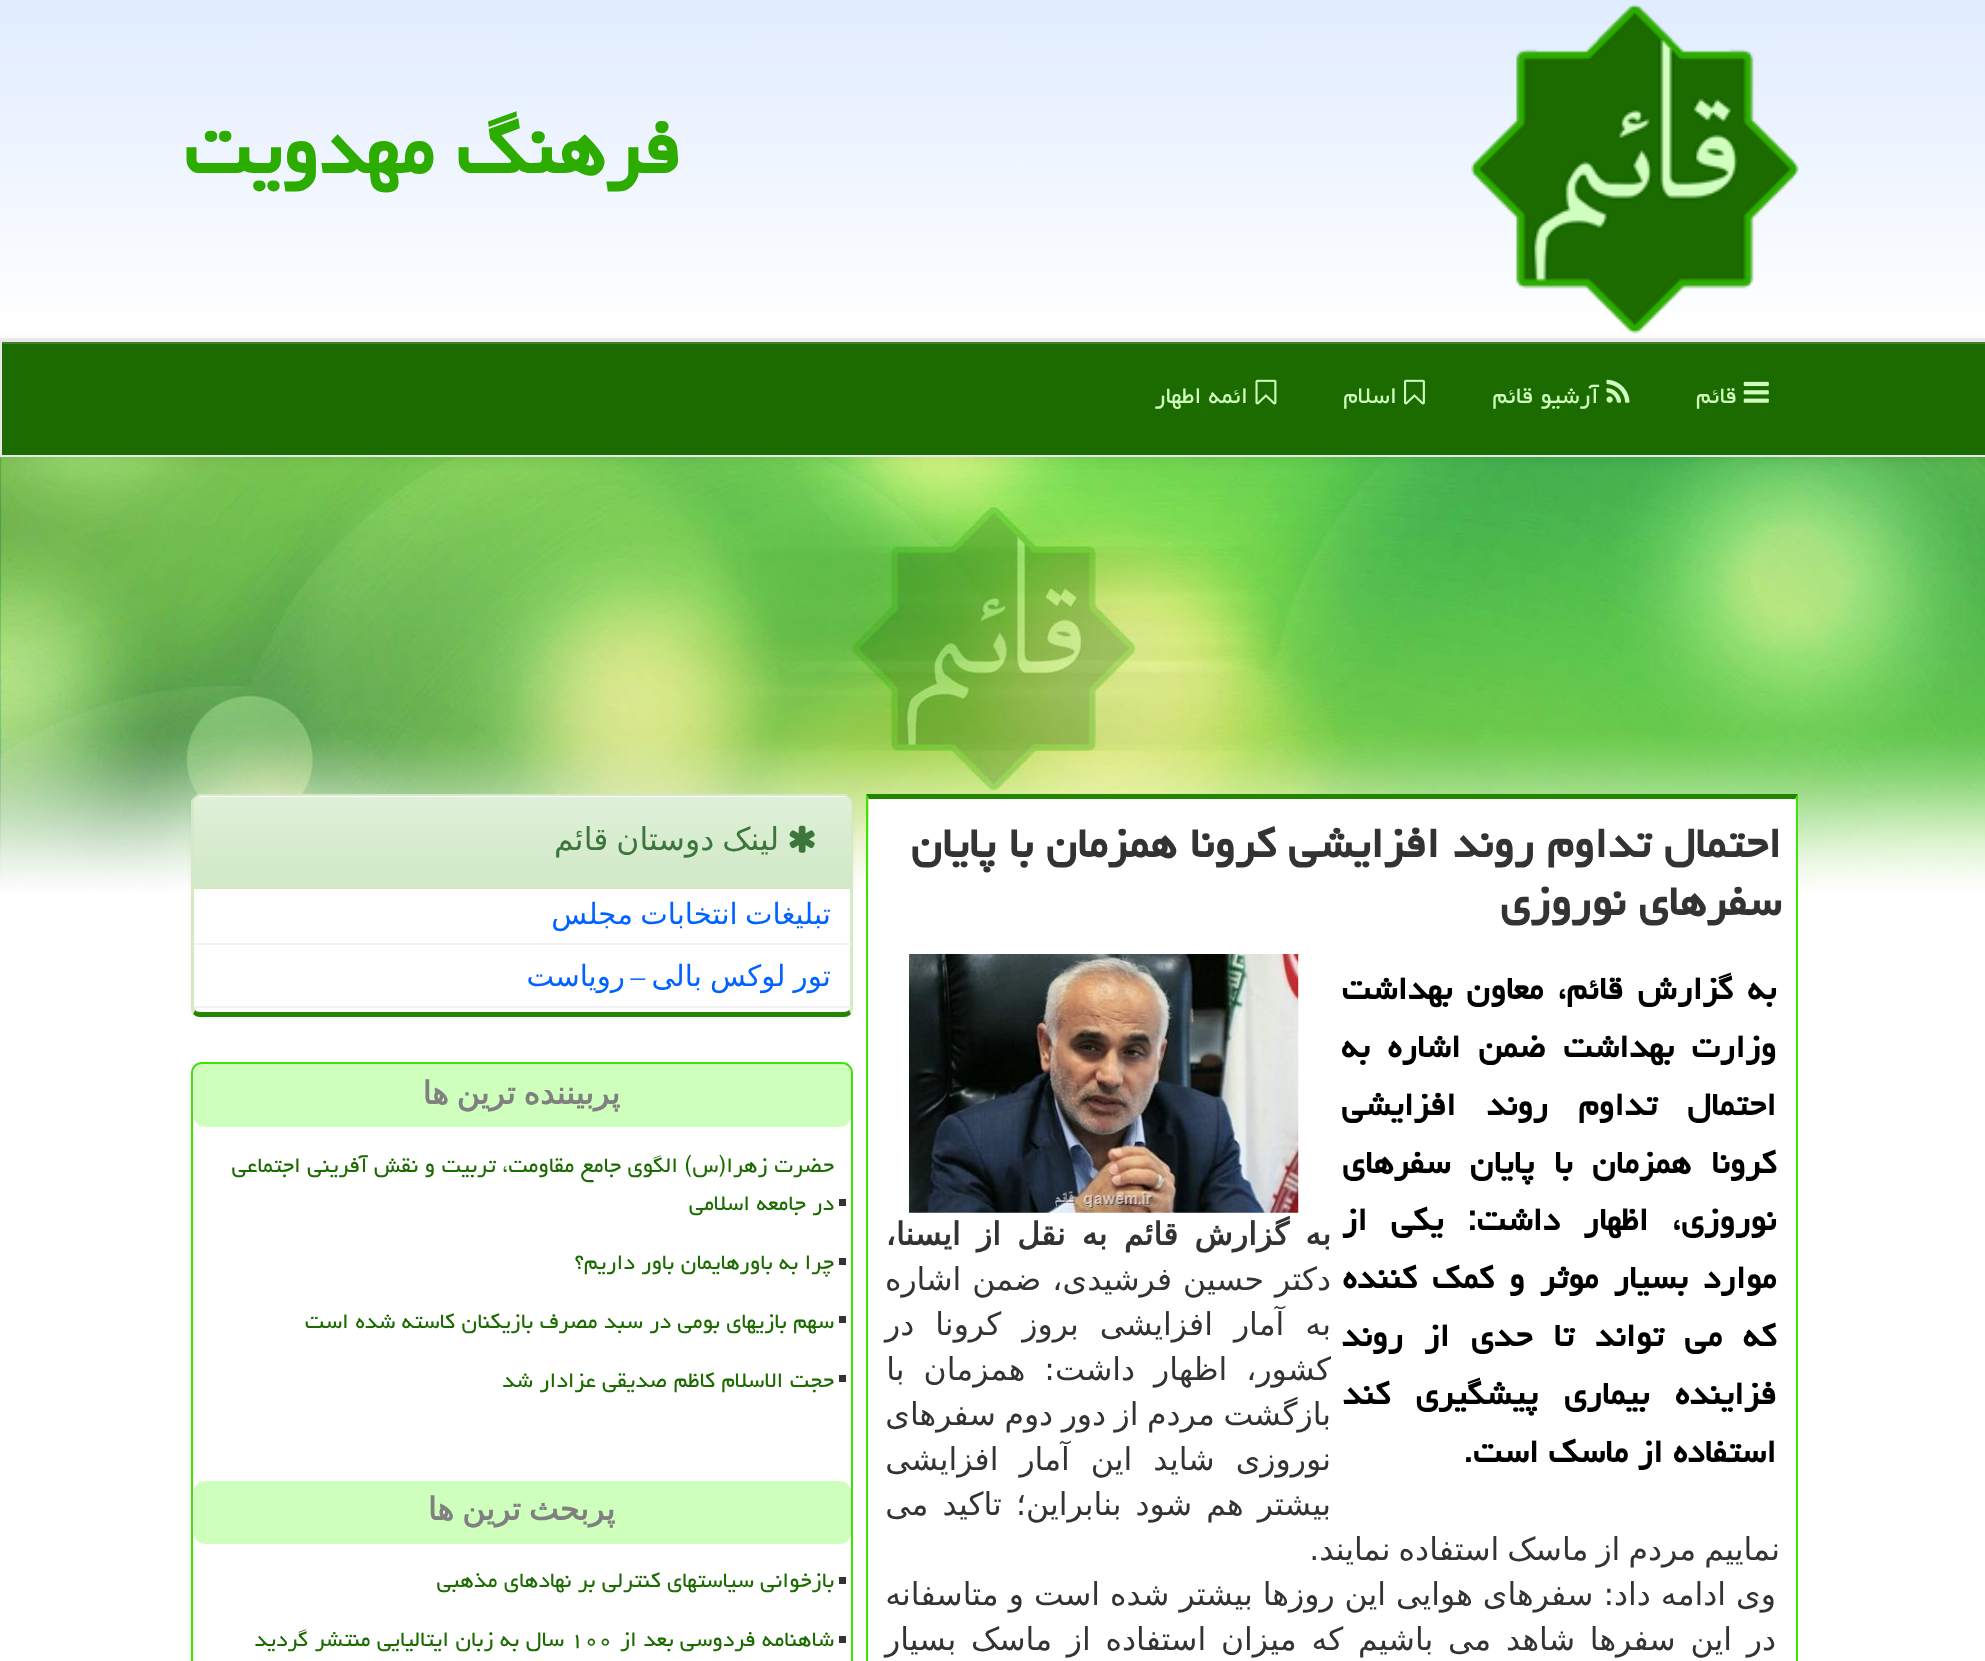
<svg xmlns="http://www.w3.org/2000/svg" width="1985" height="1661">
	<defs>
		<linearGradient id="g1" gradientUnits="userSpaceOnUse" x1="993" y1="0" x2="993" y2="338"><stop offset="0" stop-color="#E0ECFF" /><stop offset="1" stop-color="#FFFFFF" /></linearGradient>
		<linearGradient id="g2" gradientUnits="userSpaceOnUse" x1="522" y1="797" x2="522" y2="887"><stop offset="0" stop-color="#DFF0D8" /><stop offset="1" stop-color="#D0E9C6" /></linearGradient>
	</defs>
	<rect width="100%" height="100%" fill="#FFFFFF" />
	<rect x="0" y="0" width="1985" height="311" fill="url(#g1)" />
	<rect x="0" y="338" width="1985" height="2" fill="#EEEEEE" />
	<image x="1471" y="4" width="328" height="330" href="assets/img1.png" />
	<text x="680" y="173" font-family="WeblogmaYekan" font-size="94.5" font-weight="700" direction="rtl" fill="#2DAC00">فرهنگ مهدویت</text>
	<image x="0" y="457" width="1985" height="434" href="assets/img6.png" />
	<rect x="0" y="342" width="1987" height="117" fill="#000000" fill-opacity="0.07" filter="blur(5.5px)" />
	<rect x="2" y="344" width="1983" height="111" fill="#1C6B00" />
	<rect x="2" y="342" width="1983" height="2" fill="#3E8126" />
	<rect x="1" y="341" width="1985" height="115" fill="none" stroke="#E7E7E7" stroke-width="2" />
	<image x="1743" y="381" width="26" height="22" href="assets/img2.png" />
	<text x="1737" y="403" font-family="WeblogmaYekan" font-size="29.25" direction="rtl" fill="#CEFFBD">قائم</text>
	<image x="1606" y="379" width="24" height="24" href="assets/img3.png" />
	<text x="1599" y="403" font-family="WeblogmaYekan" font-size="29.25" direction="rtl" fill="#CEFFBD">آرشیو قائم</text>
	<image x="1404" y="379" width="21" height="26" href="assets/img4.png" />
	<text x="1397" y="403" font-family="WeblogmaYekan" font-size="29.25" direction="rtl" fill="#CEFFBD">اسلام</text>
	<image x="1255" y="379" width="22" height="26" href="assets/img5.png" />
	<text x="1248" y="403" font-family="WeblogmaYekan" font-size="29.25" direction="rtl" fill="#CEFFBD">ائمه اطهار</text>
	<rect x="869" y="799" width="927" height="92" fill="#FFFFFF" />
	<path d="M866 794L869 799H1795L1798 794Z" fill="#238600" />
	<path d="M1798 794V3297C1797 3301 1795 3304 1793 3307L1791 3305C1794 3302 1796 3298 1796 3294V799H1795Z" fill="#3BE500" />
	<path d="M868 799V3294C868 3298 870 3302 873 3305L871 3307C869 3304 867 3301 866 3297V794L869 799Z" fill="#3BE500" />
	<g font-family="WeblogmaYekan" font-size="53.5" font-weight="700" direction="rtl" fill="#333333">
		<text x="1781" y="857">احتمال تداوم روند افزایشی کرونا همزمان با پایان</text>
		<text x="1781" y="915">سفرهای نوروزی</text>
	</g>
	<g font-family="WeblogmaYekan" font-size="40.5" font-weight="700" direction="rtl" fill="#000000">
		<text x="1776" y="999" word-spacing="4.5">به گزارش قائم، معاون بهداشت</text>
		<text x="1776" y="1057" word-spacing="8">وزارت بهداشت ضمن اشاره به</text>
		<text x="1776" y="1115" word-spacing="20.5">احتمال تداوم روند افزایشی</text>
		<text x="1776" y="1173" word-spacing="10">کرونا همزمان با پایان سفرهای</text>
		<text x="1776" y="1230" word-spacing="14">نوروزی، اظهار داشت: یکی از</text>
		<text x="1776" y="1288" word-spacing="5.5">موارد بسیار موثر و کمک کننده</text>
		<text x="1776" y="1346" word-spacing="11.5">که می تواند تا حدی از روند</text>
		<text x="1776" y="1404" word-spacing="16">فزاینده بیماری پیشگیری کند</text>
		<text x="1776" y="1462">استفاده از ماسک است.</text>
	</g>
	<image x="909" y="954" width="390" height="259" href="assets/img7.png" />
	<text x="1331" y="1245" word-spacing="6.25" font-family="DejaVu Sans" font-size="31.5" font-weight="700" direction="rtl" fill="#333333">به گزارش قائم به نقل از ایسنا،</text>
	<g font-family="DejaVu Sans" font-size="31.5" direction="rtl" fill="#333333">
		<text x="1331" y="1290" word-spacing="1">دکتر حسین فرشیدی، ضمن اشاره</text>
		<text x="1331" y="1335" word-spacing="11">به آمار افزایشی بروز کرونا در</text>
		<text x="1331" y="1380" word-spacing="9">کشور، اظهار داشت: همزمان با</text>
		<text x="1331" y="1425" word-spacing="-1.5">بازگشت مردم از دور دوم سفرهای</text>
		<text x="1331" y="1470" word-spacing="11">نوروزی شاید این آمار افزایشی</text>
		<text x="1331" y="1515" word-spacing="4">بیشتر هم شود بنابراین؛ تاکید می</text>
		<text x="1780" y="1560" word-spacing="-2">نماییم مردم از ماسک استفاده نمایند.</text>
		<text x="1776" y="1605">وی ادامه داد: سفرهای هوایی این روزها بیشتر شده است و متاسفانه</text>
		<text x="1776" y="1650" word-spacing="4.75">در این سفرها شاهد می باشیم که میزان استفاده از ماسک بسیار</text>
	</g>
	<rect x="191" y="797" width="662" height="222" rx="9" fill="#000000" fill-opacity="0.05" filter="blur(2px)" />
	<path d="M200 796H844C847 796 850 800 850 803V1008C850 1010 847 1012 844 1012H200C197 1012 194 1010 194 1008V803C194 800 197 796 200 796Z" fill="#FFFFFF" />
	<path d="M200 796C198 796 197 797 196 799L194 797L198 794H846L850 797L848 799C847 797 846 796 844 796Z" fill="#D6E9C6" />
	<path d="M853 1010L851 1014L849 1010L850 1008V803C850 802 849 800 848 799L850 797L853 801Z" fill="#D6E9C6" />
	<path d="M200 1017H844C847 1017 849 1016 851 1014L849 1010C848 1011 846 1012 844 1012H200C198 1012 196 1011 195 1010L193 1014C195 1016 197 1017 200 1017Z" fill="#238600" />
	<path d="M191 801L194 797L196 799C195 800 194 802 194 803V1008L195 1010L193 1014L191 1010Z" fill="#D6E9C6" />
	<path d="M201 797H844C848 797 851 800 851 804V887H194V804C194 800 197 797 201 797Z" fill="url(#g2)" />
	<rect x="194" y="887" width="657" height="2" fill="#D6E9C6" />
	<image x="789" y="825" width="26" height="28" href="assets/img8.png" />
	<text x="779" y="850" word-spacing="-2" font-family="DejaVu Sans" font-size="31.5" direction="rtl" fill="#3C763D">لینک دوستان قائم</text>
	<rect x="194" y="943" width="657" height="2" fill="#F1F1F1" />
	<text x="831" y="924" word-spacing="-2" font-family="DejaVu Sans" font-size="29.25" direction="rtl" fill="#0063FF">تبلیغات انتخابات مجلس</text>
	<rect x="194" y="1006" width="657" height="2" fill="#F1F1F1" />
	<text x="831" y="986" word-spacing="-1" font-family="DejaVu Sans" font-size="29.25" direction="rtl" fill="#0063FF">تور لوکس بالی</text>
	<text x="645" y="986" font-family="Liberation Serif" font-size="29.25" direction="rtl" fill="#0063FF">–</text>
	<text x="625" y="986" font-family="DejaVu Sans" font-size="29.25" direction="rtl" fill="#0063FF">رویاست</text>
	<rect x="192" y="1063" width="660" height="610" rx="10" fill="none" stroke="#3BE500" stroke-width="2" />
	<rect x="194" y="1064" width="657" height="63" rx="11" fill="#CEFFBD" />
	<text x="620" y="1104" word-spacing="-2" font-family="DejaVu Sans" font-size="31.5" font-weight="700" direction="rtl" fill="#808080">پربیننده ترین ها</text>
	<rect x="839" y="1199" width="7" height="7" fill="#333333" />
	<g font-family="WeblogmaYekan" font-size="27" direction="rtl" fill="#1C6B00">
		<text x="834" y="1172">حضرت زهرا(س) الگوی جامع مقاومت، تربیت و نقش آفرینی اجتماعی</text>
		<text x="834" y="1210">در جامعه اسلامی</text>
	</g>
	<rect x="839" y="1258" width="7" height="7" fill="#333333" />
	<text x="834" y="1269" font-family="WeblogmaYekan" font-size="27" direction="rtl" fill="#1C6B00">چرا به باورهایمان باور داریم؟</text>
	<rect x="839" y="1316" width="7" height="7" fill="#333333" />
	<text x="834" y="1328" font-family="WeblogmaYekan" font-size="27" direction="rtl" fill="#1C6B00">سهم بازیهای بومی در سبد مصرف بازیکنان کاسته شده است</text>
	<rect x="839" y="1375" width="7" height="7" fill="#333333" />
	<text x="834" y="1387" font-family="WeblogmaYekan" font-size="27" direction="rtl" fill="#1C6B00">حجت الاسلام کاظم صدیقی عزادار شد</text>
	<rect x="194" y="1481" width="657" height="63" rx="11" fill="#CEFFBD" />
	<text x="615" y="1520" word-spacing="-2" font-family="DejaVu Sans" font-size="31.5" font-weight="700" direction="rtl" fill="#808080">پربحث ترین ها</text>
	<rect x="839" y="1577" width="7" height="7" fill="#333333" />
	<text x="834" y="1587" font-family="WeblogmaYekan" font-size="27" direction="rtl" fill="#1C6B00">بازخوانی سیاستهای کنترلی بر نهادهای مذهبی</text>
	<rect x="839" y="1636" width="7" height="7" fill="#333333" />
	<text x="834" y="1646" font-family="WeblogmaYekan" font-size="27" direction="rtl" fill="#1C6B00">شاهنامه فردوسی بعد از</text>
	<text x="570" y="1646" font-family="WeblogmaYekan" font-size="27" fill="#1C6B00">۱۰۰</text>
	<text x="564" y="1646" font-family="WeblogmaYekan" font-size="27" direction="rtl" fill="#1C6B00">سال به زبان ایتالیایی منتشر گردید</text>
</svg>
